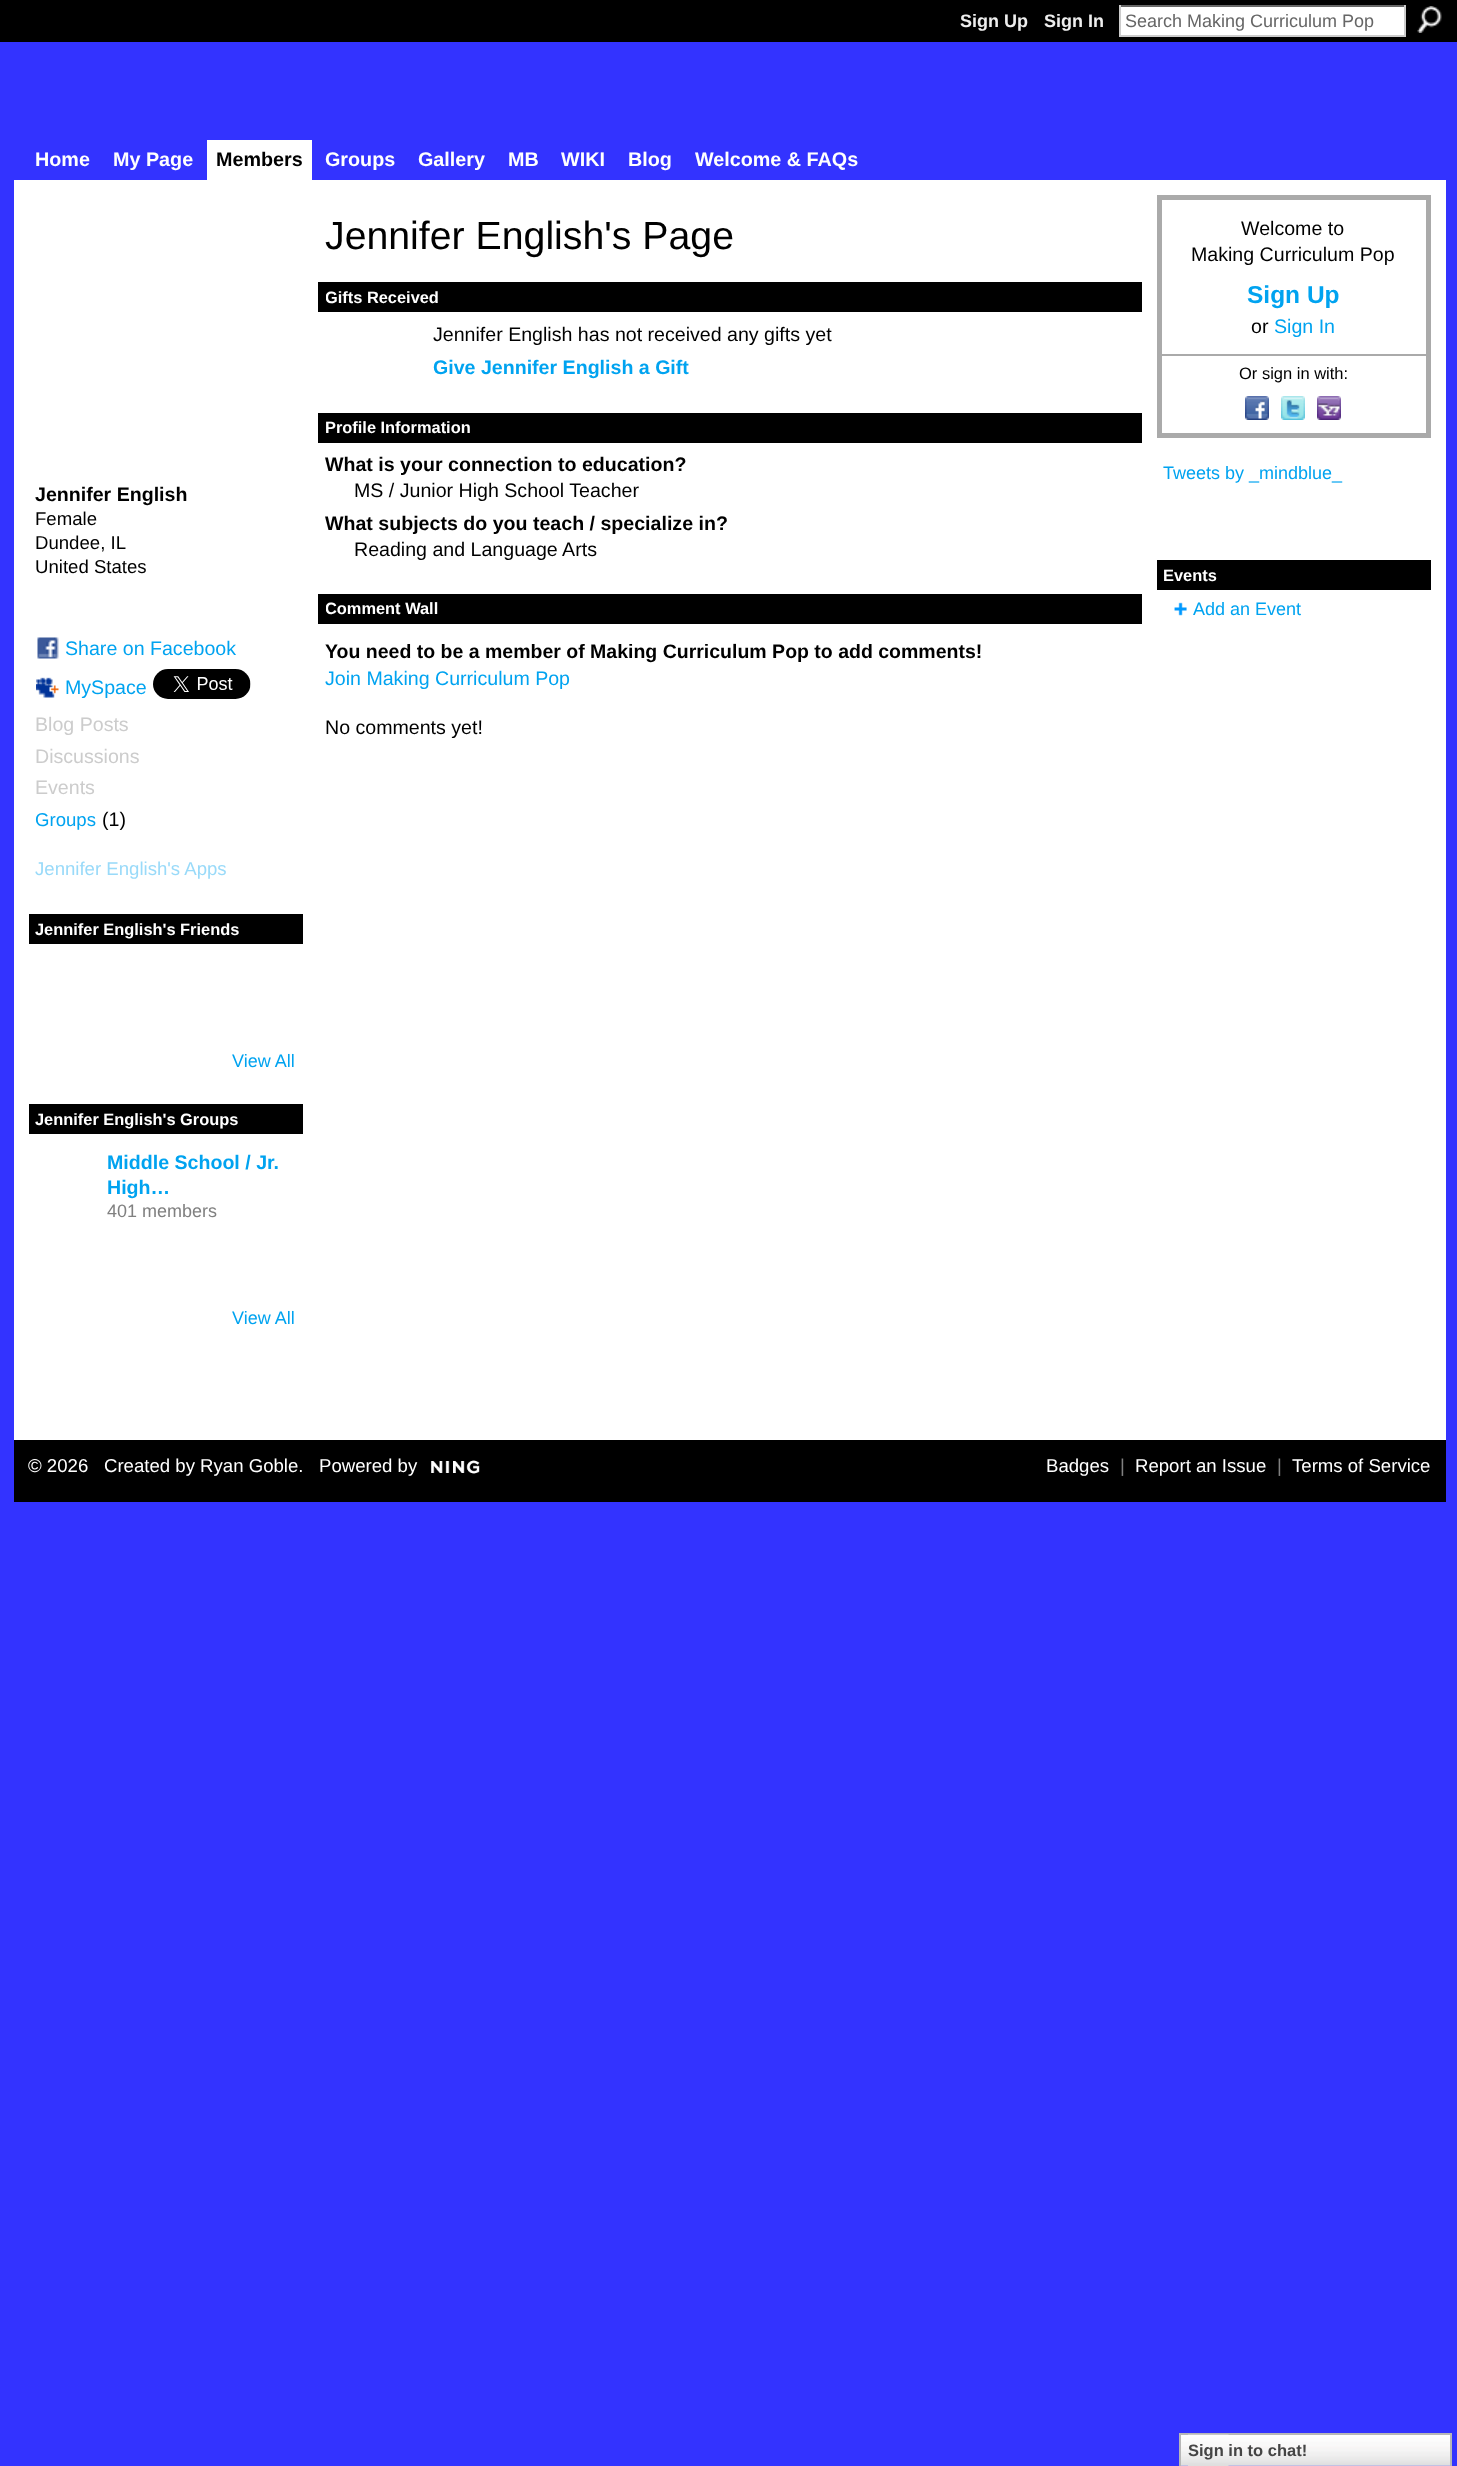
<svg xmlns="http://www.w3.org/2000/svg" width="1457" height="2466">
	<defs>
		<clipPath id="clip1"><rect x="326" y="287" width="112" height="21" /></clipPath>
		<clipPath id="clip2"><rect x="326" y="417" width="144" height="21" /></clipPath>
		<clipPath id="clip3"><rect x="326" y="599" width="112" height="21" /></clipPath>
	</defs>
	<rect width="100%" height="100%" fill="#3333FF" />
	<rect x="0" y="0" width="1457" height="42" fill="#000000" />
	<g font-family="Liberation Sans" font-size="18" font-weight="700" fill="#EEEEEE">
		<text x="960" y="27">Sign Up</text>
		<text x="1044" y="27">Sign In</text>
	</g>
	<rect x="1121" y="7" width="283" height="28" fill="#FFFFFF" />
	<rect x="1119" y="5" width="287" height="2" fill="#666666" />
	<rect x="1404" y="5" width="2" height="31" fill="#CCCCCC" />
	<rect x="1119" y="35" width="287" height="2" fill="#CCCCCC" />
	<rect x="1119" y="5" width="2" height="31" fill="#CCCCCC" />
	<text x="1125" y="27" font-family="Liberation Sans" font-size="18" fill="#666666">Search Making Curriculum Pop</text>
	<image x="1417" y="6" width="25" height="27" href="assets/img1.png" />
	<g font-family="Liberation Sans" font-size="19.75" font-weight="700" fill="#FFFFFF">
		<text x="35" y="166">Home</text>
		<text x="113" y="166">My Page</text>
	</g>
	<rect x="207" y="140" width="105" height="40" fill="#FFFFFF" />
	<text x="216" y="166" font-family="Liberation Sans" font-size="19.75" font-weight="700" fill="#000000">Members</text>
	<g font-family="Liberation Sans" font-size="19.75" font-weight="700" fill="#FFFFFF">
		<text x="325" y="166">Groups</text>
		<text x="418" y="166">Gallery</text>
		<text x="508" y="166">MB</text>
		<text x="561" y="166">WIKI</text>
		<text x="628" y="166">Blog</text>
		<text x="695" y="166">Welcome &amp; FAQs</text>
	</g>
	<rect x="14" y="180" width="1432" height="1260" fill="#FFFFFF" />
	<text x="35" y="501" font-family="Liberation Sans" font-size="19.6" font-weight="700" fill="#000000">Jennifer English</text>
	<g font-family="Liberation Sans" font-size="18.6" fill="#000000">
		<text x="35" y="525">Female</text>
		<text x="35" y="549">Dundee, IL</text>
		<text x="35" y="573">United States</text>
	</g>
	<image x="37" y="637" width="22" height="22" href="assets/img2.png" />
	<text x="65" y="655" font-family="Liberation Sans" font-size="19.6" fill="#00A3F0">Share on Facebook</text>
	<image x="36" y="677" width="23" height="21" href="assets/img3.png" />
	<text x="65" y="694" font-family="Liberation Sans" font-size="19.6" fill="#00A3F0">MySpace</text>
	<image x="153" y="669" width="98" height="30" href="assets/img4.png" />
	<g font-family="Liberation Sans" font-size="19.6" fill="#CCCCCC">
		<text x="35" y="731">Blog Posts</text>
		<text x="35" y="763">Discussions</text>
		<text x="35" y="794">Events</text>
	</g>
	<text x="35" y="826" font-family="Liberation Sans" font-size="18.6" fill="#00A3F0">Groups</text>
	<text x="102" y="826" font-family="Liberation Sans" font-size="19.6" fill="#000000">(1)</text>
	<text x="35" y="875" font-family="Liberation Sans" font-size="18.6" fill="#99DAF9">Jennifer English's Apps</text>
	<rect x="29" y="914" width="274" height="30" fill="#000000" />
	<text x="35" y="935" font-family="Liberation Sans" font-size="16.4" font-weight="700" fill="#FFFFFF">Jennifer English's Friends</text>
	<text x="232" y="1067" font-family="Liberation Sans" font-size="18" fill="#00A3F0">View All</text>
	<rect x="29" y="1104" width="274" height="30" fill="#000000" />
	<text x="35" y="1125" font-family="Liberation Sans" font-size="16.4" font-weight="700" fill="#FFFFFF">Jennifer English's Groups</text>
	<g font-family="Liberation Sans" font-size="19.6" font-weight="700" fill="#00A3F0">
		<text x="107" y="1169">Middle School / Jr.</text>
		<text x="107" y="1194">High…</text>
	</g>
	<text x="107" y="1217" font-family="Liberation Sans" font-size="18" fill="#808080">401 members</text>
	<text x="232" y="1324" font-family="Liberation Sans" font-size="18" fill="#00A3F0">View All</text>
	<text x="325" y="249" font-family="Liberation Sans" font-size="39.25" fill="#000000">Jennifer English's Page</text>
	<rect x="318" y="282" width="824" height="30" fill="#000000" />
	<g clip-path="url(#clip1)">
		<text x="325" y="303" font-family="Liberation Sans" font-size="16.4" font-weight="700" fill="#FFFFFF">Gifts Received</text>
	</g>
	<text x="433" y="341" font-family="Liberation Sans" font-size="19.6" fill="#000000">Jennifer English has not received any gifts yet</text>
	<text x="433" y="374" font-family="Liberation Sans" font-size="19.6" font-weight="700" fill="#00A3F0">Give Jennifer English a Gift</text>
	<rect x="318" y="413" width="824" height="30" fill="#000000" />
	<g clip-path="url(#clip2)">
		<text x="325" y="433" font-family="Liberation Sans" font-size="16.4" font-weight="700" fill="#FFFFFF">Profile Information</text>
	</g>
	<text x="325" y="471" font-family="Liberation Sans" font-size="19.6" font-weight="700" fill="#000000">What is your connection to education?</text>
	<text x="354" y="497" font-family="Liberation Sans" font-size="19.6" fill="#000000">MS / Junior High School Teacher</text>
	<text x="325" y="530" font-family="Liberation Sans" font-size="19.6" font-weight="700" fill="#000000">What subjects do you teach / specialize in?</text>
	<text x="354" y="556" font-family="Liberation Sans" font-size="19.6" fill="#000000">Reading and Language Arts</text>
	<rect x="318" y="594" width="824" height="30" fill="#000000" />
	<g clip-path="url(#clip3)">
		<text x="325" y="614" font-family="Liberation Sans" font-size="16.4" font-weight="700" fill="#FFFFFF">Comment Wall</text>
	</g>
	<text x="325" y="658" font-family="Liberation Sans" font-size="19.5" font-weight="700" fill="#000000">You need to be a member of Making Curriculum Pop to add comments!</text>
	<text x="325" y="685" font-family="Liberation Sans" font-size="19.6" fill="#00A3F0">Join Making Curriculum Pop</text>
	<text x="325" y="734" font-family="Liberation Sans" font-size="19.6" fill="#000000">No comments yet!</text>
	<rect x="1159.5" y="197.5" width="269" height="238" fill="none" stroke="#AAAAAA" stroke-width="5" />
	<g font-family="Liberation Sans" font-size="19.6" fill="#000000">
		<text x="1241" y="235">Welcome to</text>
		<text x="1191" y="261">Making Curriculum Pop</text>
	</g>
	<text x="1247" y="303" font-family="Liberation Sans" font-size="24.5" font-weight="700" fill="#00A3F0">Sign Up</text>
	<text x="1251" y="333" font-family="Liberation Sans" font-size="19.6" fill="#000000">or</text>
	<text x="1274" y="333" font-family="Liberation Sans" font-size="19.6" fill="#00A3F0">Sign In</text>
	<rect x="1161" y="354" width="266" height="2" fill="#AAAAAA" />
	<text x="1239" y="379" font-family="Liberation Sans" font-size="16.5" fill="#000000">Or sign in with:</text>
	<image x="1245" y="396" width="24" height="24" href="assets/img5.png" />
	<image x="1281" y="396" width="24" height="24" href="assets/img6.png" />
	<image x="1317" y="396" width="24" height="24" href="assets/img7.png" />
	<text x="1163" y="479" font-family="Liberation Sans" font-size="18" fill="#00A3F0">Tweets by _mindblue_</text>
	<rect x="1157" y="560" width="274" height="30" fill="#000000" />
	<text x="1163" y="581" font-family="Liberation Sans" font-size="16.4" font-weight="700" fill="#FFFFFF">Events</text>
	<image x="1174" y="602" width="13" height="14" href="assets/img8.png" />
	<text x="1193" y="615" font-family="Liberation Sans" font-size="18" fill="#00A3F0">Add an Event</text>
	<rect x="14" y="1440" width="1432" height="62" fill="#000000" />
	<g font-family="Liberation Sans" font-size="18.6" fill="#FFFFFF">
		<text x="28" y="1472">© 2026</text>
		<text x="104" y="1472">Created by Ryan Goble.</text>
		<text x="319" y="1472">Powered by</text>
	</g>
	<image x="431" y="1460" width="49" height="14" href="assets/img9.png" />
	<text x="1046" y="1472" font-family="Liberation Sans" font-size="18.6" fill="#FFFFFF">Badges</text>
	<text x="1120" y="1472" font-family="Liberation Sans" font-size="18.6" fill="#808080">|</text>
	<text x="1135" y="1472" font-family="Liberation Sans" font-size="18.6" fill="#FFFFFF">Report an Issue</text>
	<text x="1277" y="1472" font-family="Liberation Sans" font-size="18.6" fill="#808080">|</text>
	<text x="1292" y="1472" font-family="Liberation Sans" font-size="18.6" fill="#FFFFFF">Terms of Service</text>
	<image x="1181" y="2435" width="269" height="31" href="assets/img10.png" />
	<rect x="1180" y="2434" width="271" height="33" fill="none" stroke="#B7B7B7" stroke-width="2" />
	<image x="1188" y="2434" width="41" height="32" href="assets/img11.png" />
	<text x="1188" y="2456" font-family="Liberation Sans" font-size="16.5" font-weight="700" fill="#454545">Sign in to chat!</text>
</svg>
